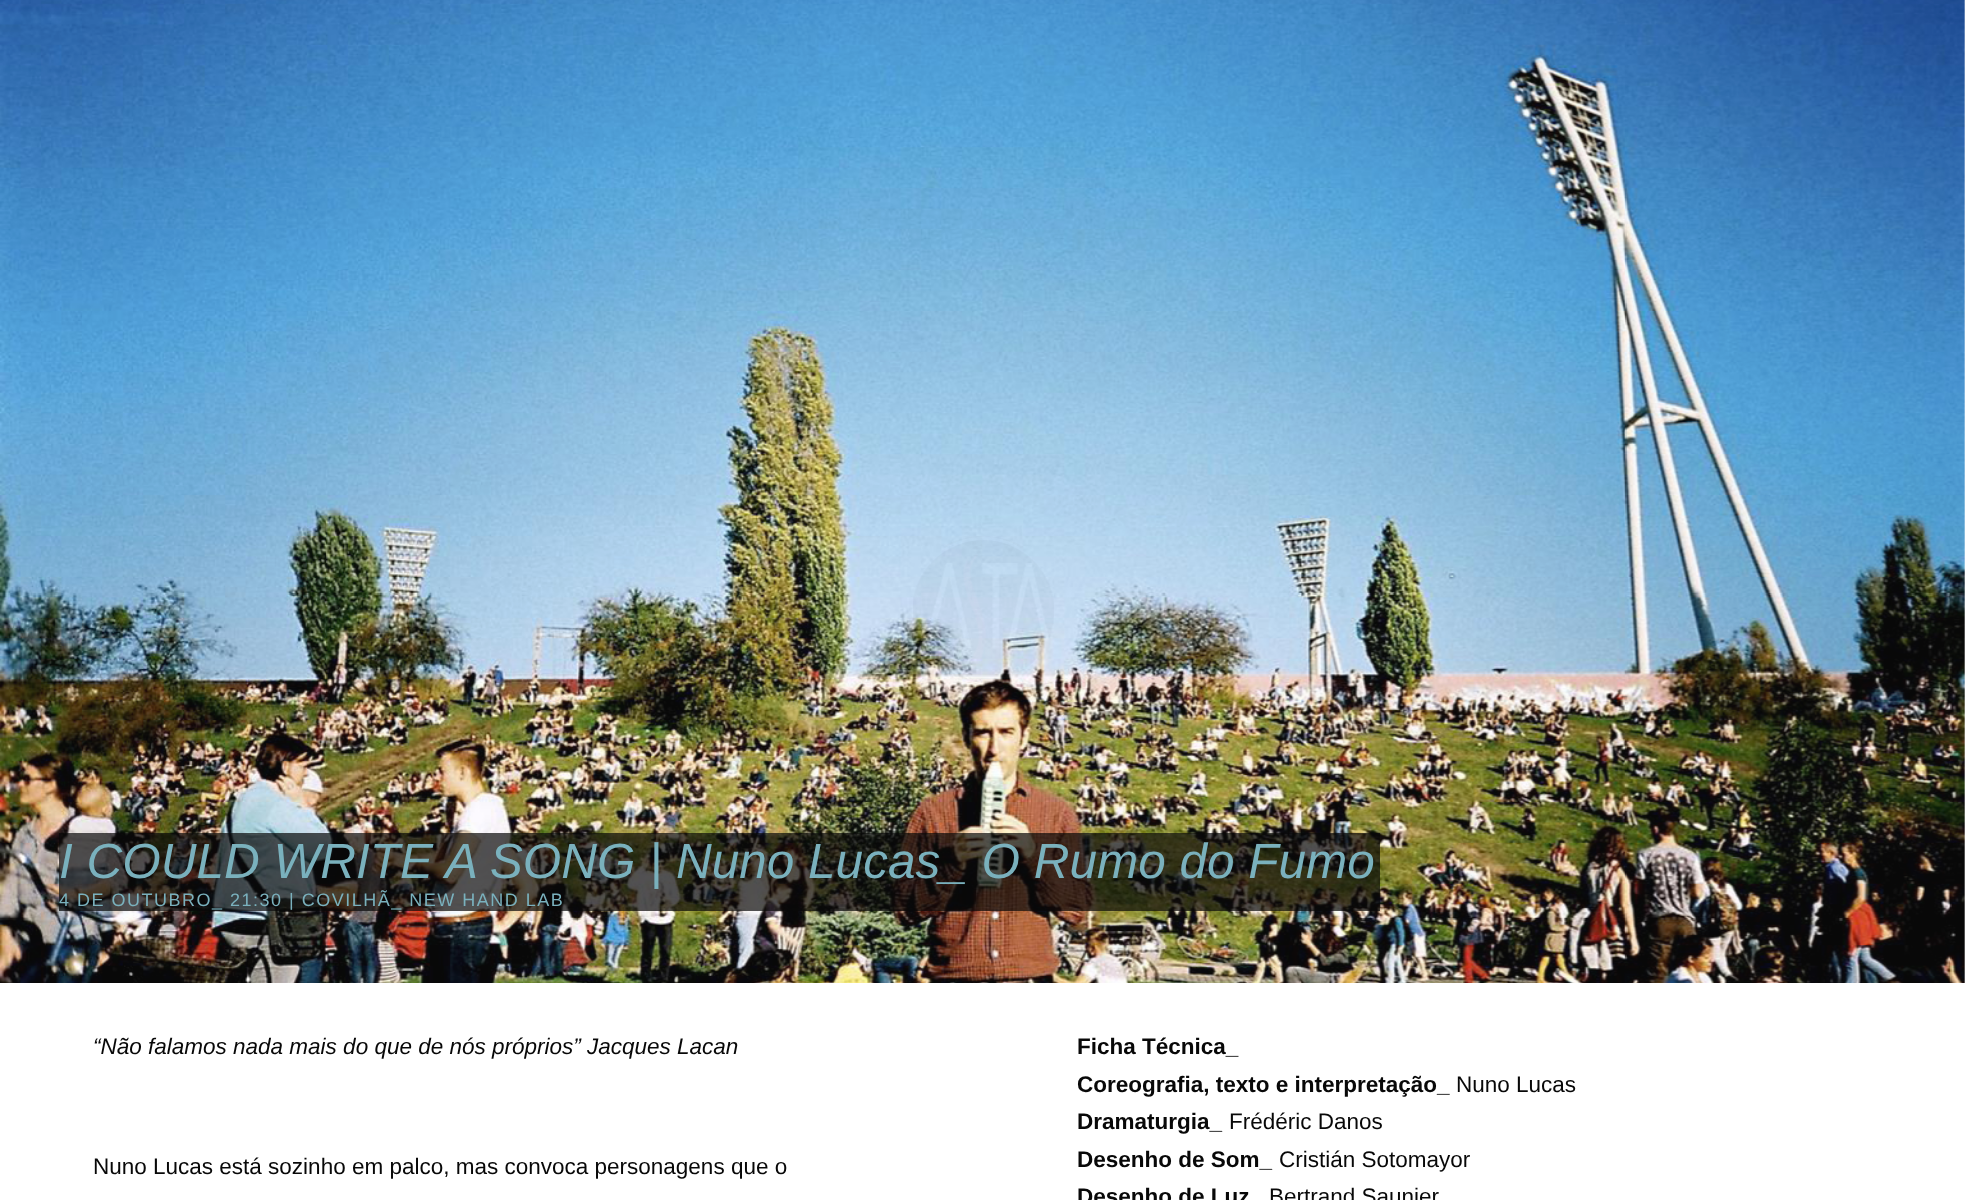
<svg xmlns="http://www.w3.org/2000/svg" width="1965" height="1200">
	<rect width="100%" height="100%" fill="#FFFFFF" />
	<image x="0" y="0" width="1965" height="983" href="assets/img2.png" />
	<image x="913" y="540" width="141" height="142" href="assets/img1.png" />
	<path d="M983 536C968 536 954 540 943 547L945 548C968 533 998 533 1021 548L1024 547C1012 540 998 536 983 536Z" fill="#888888" fill-opacity="0.03" />
	<rect x="59" y="833" width="1321" height="78" fill="#080808" fill-opacity="0.7" />
	<text x="59" y="878" font-family="Liberation Sans" font-size="49.5" font-style="italic" fill="#7AB1BD">I COULD WRITE A SONG | Nuno Lucas_ O Rumo do Fumo</text>
	<text x="59" y="906" font-family="Liberation Sans" font-size="18" letter-spacing="1.5" fill="#7AB1BD">4 DE OUTUBRO_ 21:30 | COVILHÃ_ NEW HAND LAB</text>
	<text x="93" y="1054" font-family="Liberation Sans" font-size="22.5" font-style="italic" fill="#080808">“Não falamos nada mais do que de nós próprios” Jacques Lacan</text>
	<text x="93" y="1174" font-family="Liberation Sans" font-size="22.5" fill="#080808">Nuno Lucas está sozinho em palco, mas convoca personagens que o</text>
	<g font-family="Liberation Sans" font-size="22.5" font-weight="700" fill="#080808">
		<text x="1077" y="1054">Ficha Técnica_</text>
		<text x="1077" y="1092">Coreografia, texto e interpretação_</text>
	</g>
	<text x="1456" y="1092" font-family="Liberation Sans" font-size="22.5" fill="#080808">Nuno Lucas</text>
	<text x="1077" y="1129" font-family="Liberation Sans" font-size="22.5" font-weight="700" fill="#080808">Dramaturgia_</text>
	<text x="1229" y="1129" font-family="Liberation Sans" font-size="22.5" fill="#080808">Frédéric Danos</text>
	<text x="1077" y="1167" font-family="Liberation Sans" font-size="22.5" font-weight="700" fill="#080808">Desenho de Som_</text>
	<text x="1279" y="1167" font-family="Liberation Sans" font-size="22.5" fill="#080808">Cristián Sotomayor</text>
	<text x="1077" y="1204" font-family="Liberation Sans" font-size="22.5" font-weight="700" fill="#080808">Desenho de Luz</text>
	<text x="1269" y="1204" font-family="Liberation Sans" font-size="22.5" fill="#080808">Bertrand Saunier</text>
</svg>
